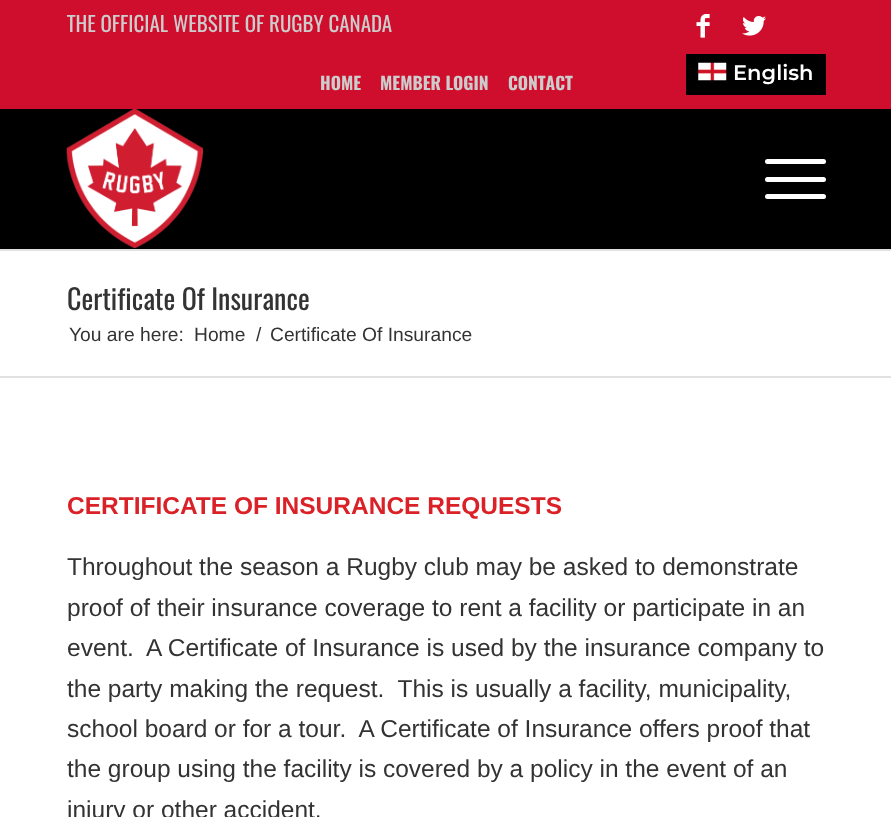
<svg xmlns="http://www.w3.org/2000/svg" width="891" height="817">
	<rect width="100%" height="100%" fill="#FFFFFF" />
	<rect x="0" y="0" width="891" height="109" fill="#CF0E2D" />
	<text x="67" y="32" font-family="Oswald" font-size="21" fill="#CCCCCC">THE OFFICIAL WEBSITE OF RUGBY CANADA</text>
	<image x="696" y="14" width="14" height="24" href="assets/img1.png" />
	<image x="742" y="16" width="24" height="20" href="assets/img2.png" />
	<g font-family="Oswald" font-size="17.5" font-weight="700" fill="#CCCCCC">
		<text x="320" y="90">HOME</text>
		<text x="380" y="90">MEMBER LOGIN</text>
		<text x="508" y="90">CONTACT</text>
	</g>
	<rect x="686" y="54" width="140" height="41" fill="#000000" />
	<image x="698" y="62" width="29" height="19" href="assets/img3.png" />
	<text x="733" y="80" font-family="Montserrat" font-size="21" font-weight="600" fill="#FFFFFF">English</text>
	<rect x="0" y="249" width="891" height="2" fill="#E1E1E1" />
	<rect x="0" y="109" width="891" height="140" fill="#000000" />
	<image x="66" y="109" width="137" height="140" href="assets/img4.png" />
	<rect x="765" y="177" width="61" height="5" rx="2.5" fill="#FFFFFF" />
	<rect x="765" y="159" width="61" height="5" rx="2.5" fill="#FFFFFF" />
	<rect x="765" y="194" width="61" height="5" rx="2.5" fill="#FFFFFF" />
	<text x="67" y="310" font-family="Oswald" font-size="28" fill="#333333">Certificate Of Insurance</text>
	<g font-family="Liberation Sans" font-size="19.25" fill="#333333">
		<text x="69" y="341">You are here:</text>
		<text x="194" y="341">Home</text>
		<text x="256" y="341">/</text>
		<text x="270" y="341">Certificate Of Insurance</text>
	</g>
	<rect x="0" y="376" width="891" height="2" fill="#E1E1E1" />
	<text x="67" y="514" font-family="Liberation Sans" font-size="24.5" font-weight="700" fill="#DA2127">CERTIFICATE OF INSURANCE REQUESTS</text>
	<g font-family="Liberation Sans" font-size="24.5" fill="#333333">
		<text x="67" y="575">Throughout the season a Rugby club may be asked to demonstrate</text>
		<text x="67" y="616">proof of their insurance coverage to rent a facility or participate in an</text>
		<text x="67" y="656" xml:space="preserve">event.  A Certificate of Insurance is used by the insurance company to</text>
		<text x="67" y="697" xml:space="preserve">the party making the request.  This is usually a facility, municipality,</text>
		<text x="67" y="737" xml:space="preserve">school board or for a tour.  A Certificate of Insurance offers proof that</text>
		<text x="67" y="777">the group using the facility is covered by a policy in the event of an</text>
		<text x="67" y="818">injury or other accident.</text>
	</g>
</svg>
